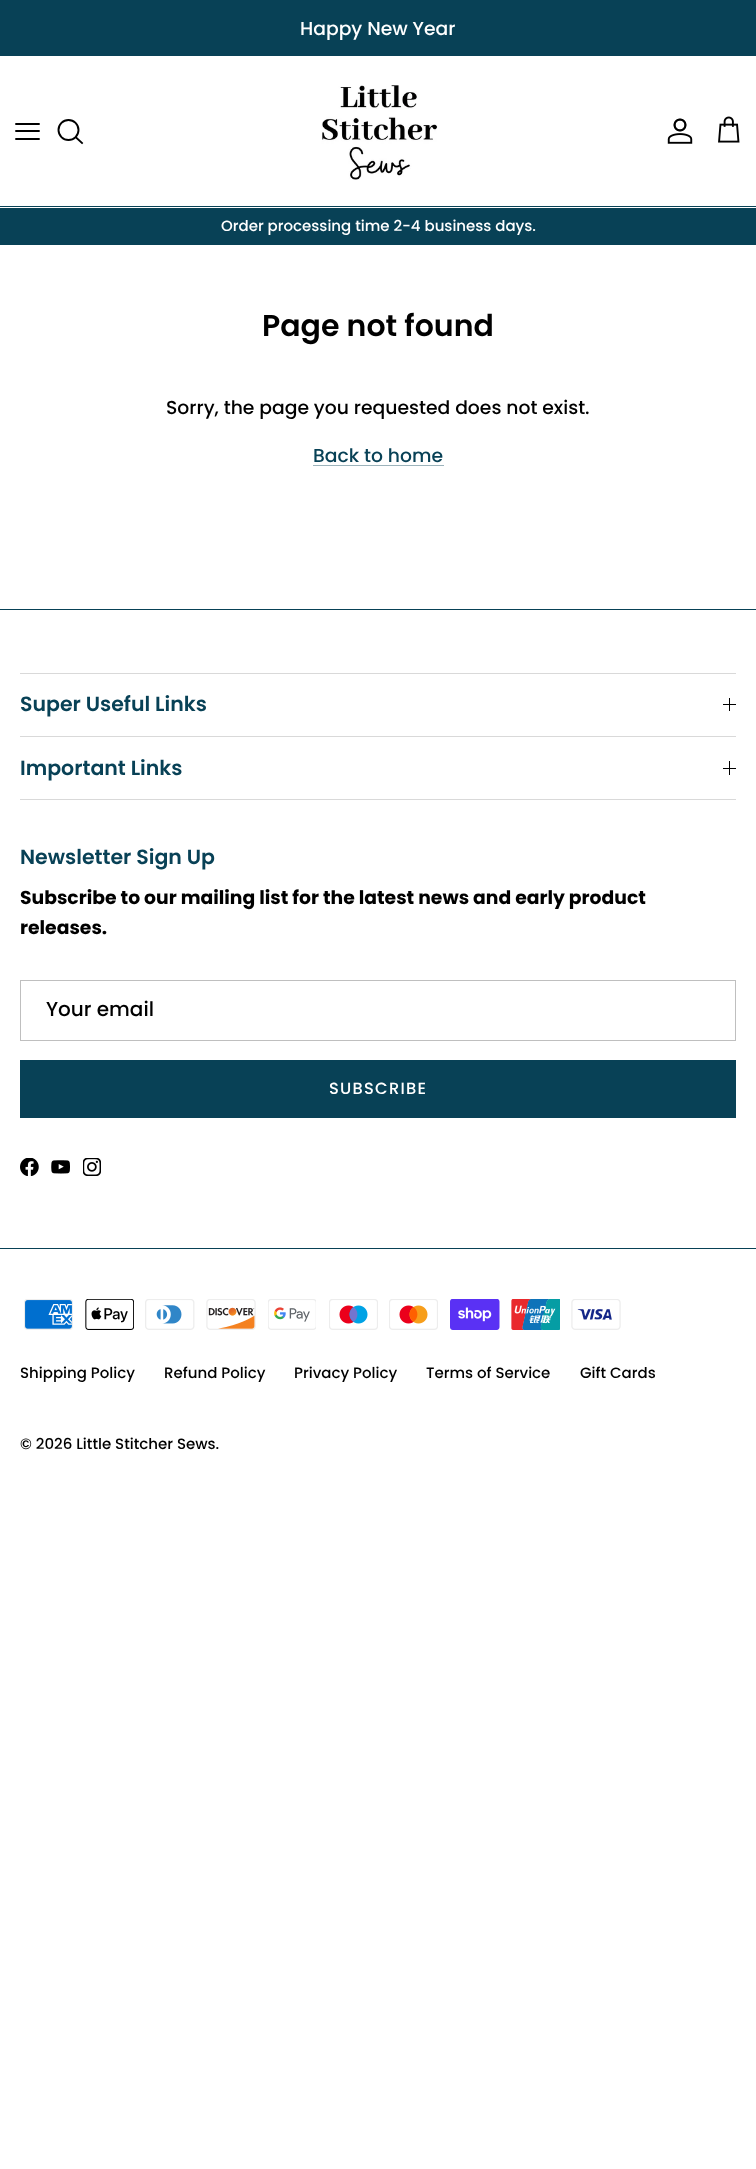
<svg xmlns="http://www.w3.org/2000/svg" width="756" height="2169">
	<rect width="100%" height="100%" fill="#FFFFFF" />
	<rect x="0" y="0" width="756" height="56" fill="#084156" />
	<text x="300" y="35" font-family="Poppins" font-size="18.75" font-weight="500" fill="#FFFFFF">Happy New Year</text>
	<rect x="0" y="206" width="756" height="1" fill="#084156" />
	<path d="M16 131H39M16 124H39M16 139H39" fill="none" stroke="#000000" stroke-width="1.9" stroke-linecap="round" stroke-linejoin="round" />
	<circle cx="68.5" cy="130" r="10" fill="none" stroke="#000000" stroke-width="1.9" />
	<path d="M76 137.5L82 143" fill="none" stroke="#000000" stroke-width="1.9" stroke-linecap="square" />
	<image x="321" y="85" width="117" height="95" href="assets/img1.png" />
	<image x="667" y="118" width="26" height="26" href="assets/img2.png" />
	<image x="718" y="116" width="22" height="27" href="assets/img3.png" />
	<rect x="0" y="208" width="756" height="37" fill="#084156" />
	<text x="221" y="231" font-family="Poppins" font-size="15" font-weight="500" fill="#FFFFFF">Order processing time 2-4 business days.</text>
	<text x="262" y="336" font-family="Poppins" font-size="30" font-weight="600" fill="#000000">Page not found</text>
	<text x="166" y="414" font-family="Poppins" font-size="18.75" font-weight="500" fill="#000000">Sorry, the page you requested does not exist.</text>
	<text x="313" y="462" font-family="Poppins" font-size="18.75" font-weight="500" fill="#084156">Back to home</text>
	<rect x="313" y="465" width="131" height="1" fill="#9CB3BB" />
	<rect x="0" y="609" width="756" height="1" fill="#084156" />
	<rect x="20" y="673" width="716" height="1" fill="#D9D9D9" />
	<text x="20" y="711" font-family="Poppins" font-size="20.5" font-weight="600" fill="#084156">Super Useful Links</text>
	<rect x="729" y="698" width="1" height="13" fill="#000000" />
	<rect x="723" y="704" width="13" height="1" fill="#000000" />
	<rect x="20" y="736" width="716" height="1" fill="#D9D9D9" />
	<rect x="20" y="799" width="716" height="1" fill="#D9D9D9" />
	<text x="20" y="775" font-family="Poppins" font-size="20.5" font-weight="600" fill="#084156">Important Links</text>
	<rect x="729" y="761" width="1" height="14" fill="#000000" />
	<rect x="723" y="768" width="13" height="1" fill="#000000" />
	<text x="20" y="864" font-family="Poppins" font-size="20.5" font-weight="600" fill="#084156">Newsletter Sign Up</text>
	<g font-family="Poppins" font-size="18.75" font-weight="700" fill="#000000">
		<text x="20" y="904">Subscribe to our mailing list for the latest news and early product</text>
		<text x="20" y="934">releases.</text>
	</g>
	<rect x="20.5" y="980.5" width="715" height="60" fill="none" stroke="#BFBFBF" />
	<text x="46" y="1016" font-family="Poppins" font-size="20" font-weight="500" fill="#000000">Your email</text>
	<rect x="20" y="1060" width="716" height="58" fill="#084156" />
	<text x="329" y="1094" font-family="Poppins" font-size="16.25" font-weight="500" letter-spacing="1.25" fill="#FFFFFF">SUBSCRIBE</text>
	<image x="20" y="1158" width="19" height="18" href="assets/img4.png" />
	<image x="51" y="1160" width="19" height="14" href="assets/img5.png" />
	<image x="83" y="1158" width="18" height="18" href="assets/img6.png" />
	<rect x="0" y="1248" width="756" height="1" fill="#084156" />
	<image x="24" y="1299" width="49" height="31" href="assets/img7.png" />
	<image x="85" y="1299" width="49" height="31" href="assets/img8.png" />
	<image x="145" y="1299" width="50" height="31" href="assets/img9.png" />
	<image x="206" y="1299" width="50" height="31" href="assets/img10.png" />
	<image x="268" y="1299" width="48" height="31" href="assets/img11.png" />
	<image x="329" y="1299" width="49" height="31" href="assets/img12.png" />
	<image x="389" y="1299" width="49" height="31" href="assets/img13.png" />
	<image x="450" y="1299" width="50" height="31" href="assets/img14.png" />
	<image x="511" y="1299" width="49" height="31" href="assets/img15.png" />
	<image x="571" y="1299" width="50" height="31" href="assets/img16.png" />
	<g font-family="Poppins" font-size="15" font-weight="500" fill="#000000">
		<text x="20" y="1378">Shipping Policy</text>
		<text x="164" y="1378">Refund Policy</text>
		<text x="294" y="1378">Privacy Policy</text>
		<text x="426" y="1378">Terms of Service</text>
		<text x="580" y="1378">Gift Cards</text>
		<text x="20" y="1449">© 2026 Little Stitcher Sews.</text>
	</g>
</svg>
